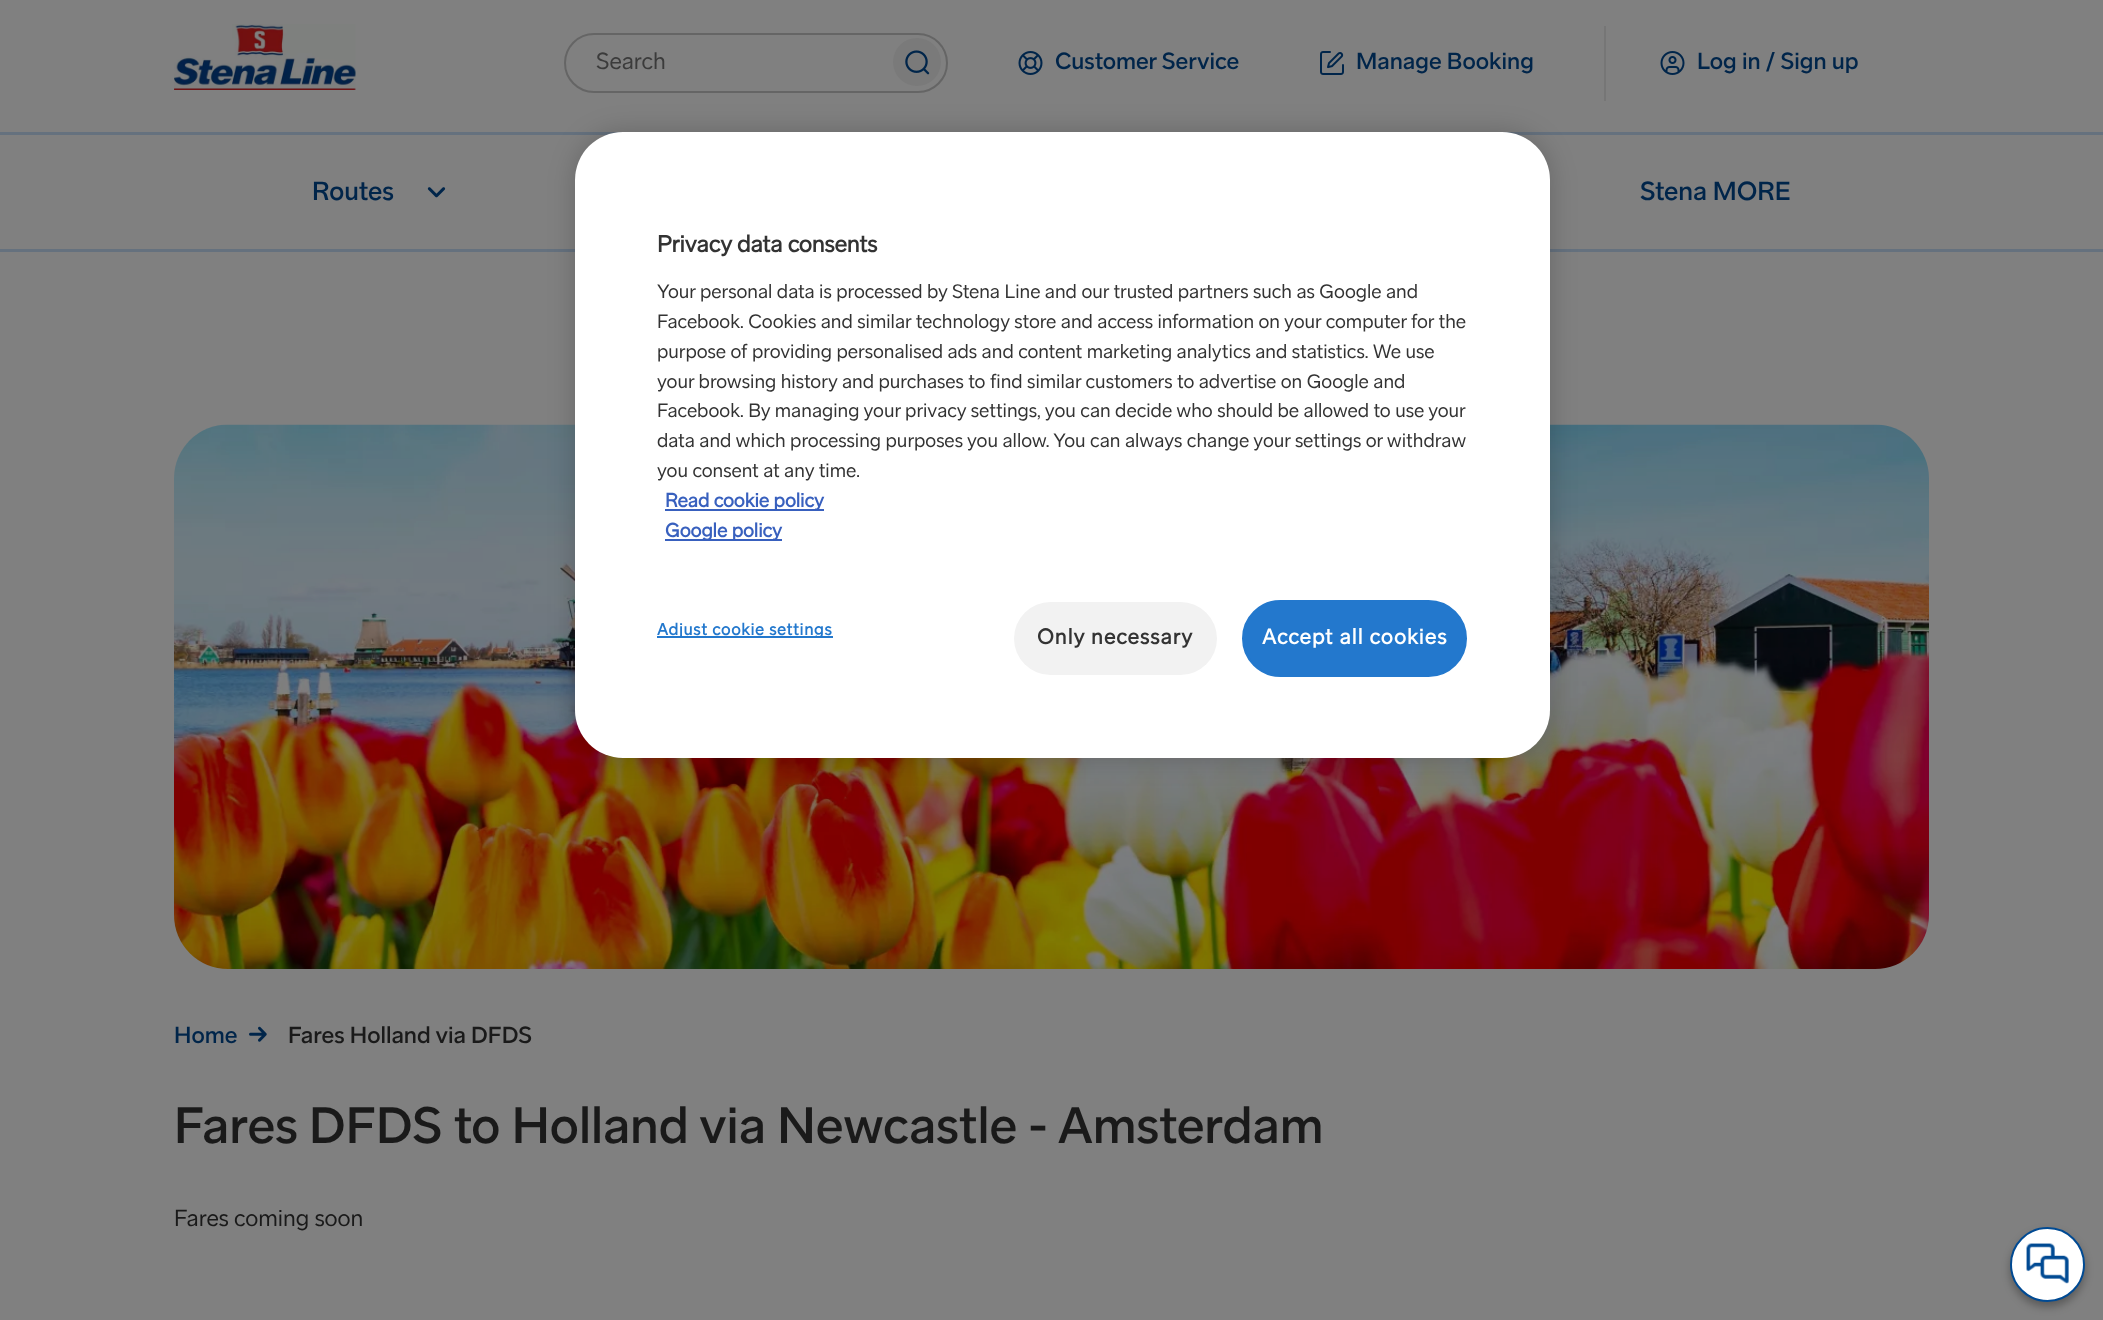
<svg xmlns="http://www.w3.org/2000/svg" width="2103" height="1320">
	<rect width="100%" height="100%" fill="#808080" />
	<image x="174" y="24" width="182" height="66" href="assets/img1.png" />
	<rect x="565" y="34" width="382" height="58" rx="29" fill="none" stroke="#656565" stroke-width="2" />
	<text x="596" y="69" font-family="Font" font-size="24" fill="#3B3B3B">Search</text>
	<circle cx="917" cy="62" r="24" fill="#7A7A7A" />
	<image x="905" y="50" width="25" height="25" href="assets/img2.png" />
	<image x="1018" y="51" width="25" height="24" href="assets/img3.png" />
	<text x="1055" y="69" font-family="Font" font-size="24" font-weight="500" fill="#00254A">Customer Service</text>
	<image x="1320" y="51" width="24" height="24" href="assets/img4.png" />
	<text x="1356" y="69" font-family="Font" font-size="24" font-weight="500" fill="#00254A">Manage Booking</text>
	<rect x="1604" y="26" width="2" height="75" fill="#767676" />
	<image x="1660" y="51" width="25" height="24" href="assets/img5.png" />
	<text x="1697" y="69" font-family="Font" font-size="24" font-weight="500" fill="#00254A">Log in / Sign up</text>
	<rect x="0" y="132" width="2103" height="3" fill="#65717E" />
	<rect x="0" y="249" width="2103" height="3" fill="#65717E" />
	<text x="312" y="200" font-family="Font" font-size="27" font-weight="500" fill="#00254A">Routes</text>
	<image x="427" y="187" width="19" height="11" href="assets/img6.png" />
	<text x="1640" y="200" font-family="Font" font-size="27" font-weight="500" fill="#00254A">Stena MORE</text>
	<image x="174" y="424" width="1755" height="545" href="assets/img7.png" />
	<text x="174" y="1043" font-family="Font" font-size="24" font-weight="500" fill="#00254A">Home</text>
	<image x="249" y="1026" width="18" height="16" href="assets/img8.png" />
	<text x="288" y="1043" font-family="Font" font-size="24" font-weight="500" fill="#1A1A1A">Fares Holland via DFDS</text>
	<text x="174" y="1143" font-family="Font" font-size="52.5" font-weight="500" fill="#1A1A1A">Fares DFDS to Holland via Newcastle - Amsterdam</text>
	<text x="174" y="1226" font-family="Font" font-size="24" fill="#1A1A1A">Fares coming soon</text>
	<rect x="2010" y="1232" width="75" height="75" rx="37.5" fill="#000000" fill-opacity="0.3" filter="blur(4.5px)" />
	<circle cx="2047.5" cy="1264.5" r="36.5" fill="#FFFFFF" stroke="#004A93" stroke-width="2" />
	<image x="2026" y="1243" width="43" height="41" href="assets/img9.png" />
	<rect x="575" y="132" width="975" height="626" rx="48" fill="#000000" fill-opacity="0.2" filter="blur(13.5px)" />
	<rect x="575" y="132" width="975" height="626" rx="48" fill="#FFFFFF" />
	<text x="657" y="252" font-family="Font" font-size="24" font-weight="700" fill="#333333">Privacy data consents</text>
	<g font-family="Font" font-size="20" fill="#333333">
		<text x="657" y="298">Your personal data is processed by Stena Line and our trusted partners such as Google and</text>
		<text x="657" y="328">Facebook. Cookies and similar technology store and access information on your computer for the</text>
		<text x="657" y="358">purpose of providing personalised ads and content marketing analytics and statistics. We use</text>
		<text x="657" y="388">your browsing history and purchases to find similar customers to advertise on Google and</text>
		<text x="657" y="417">Facebook. By managing your privacy settings, you can decide who should be allowed to use your</text>
		<text x="657" y="447">data and which processing purposes you allow. You can always change your settings or withdraw</text>
		<text x="657" y="477">you consent at any time.</text>
	</g>
	<rect x="665" y="509" width="159" height="2" fill="#3860BE" />
	<text x="665" y="507" font-family="Font" font-size="20" font-weight="700" fill="#3860BE">Read cookie policy</text>
	<rect x="665" y="539" width="117" height="2" fill="#3860BE" />
	<text x="665" y="537" font-family="Font" font-size="20" font-weight="700" fill="#3860BE">Google policy</text>
	<rect x="657" y="636" width="176" height="2" fill="#2378CD" />
	<text x="657" y="635" font-family="Font" font-size="17" font-weight="700" letter-spacing="0.85" fill="#2378CD">Adjust cookie settings</text>
	<rect x="1014" y="602" width="203" height="73" rx="36.5" fill="#F2F2F2" />
	<text x="1037" y="644" font-family="Font" font-size="22" font-weight="700" letter-spacing="1.1" fill="#333333">Only necessary</text>
	<rect x="1243" y="601" width="223" height="75" rx="37.5" fill="#2378CD" stroke="#2378CD" stroke-width="2" />
	<text x="1262" y="644" font-family="Font" font-size="22" font-weight="700" letter-spacing="1.1" fill="#FFFFFF">Accept all cookies</text>
</svg>
